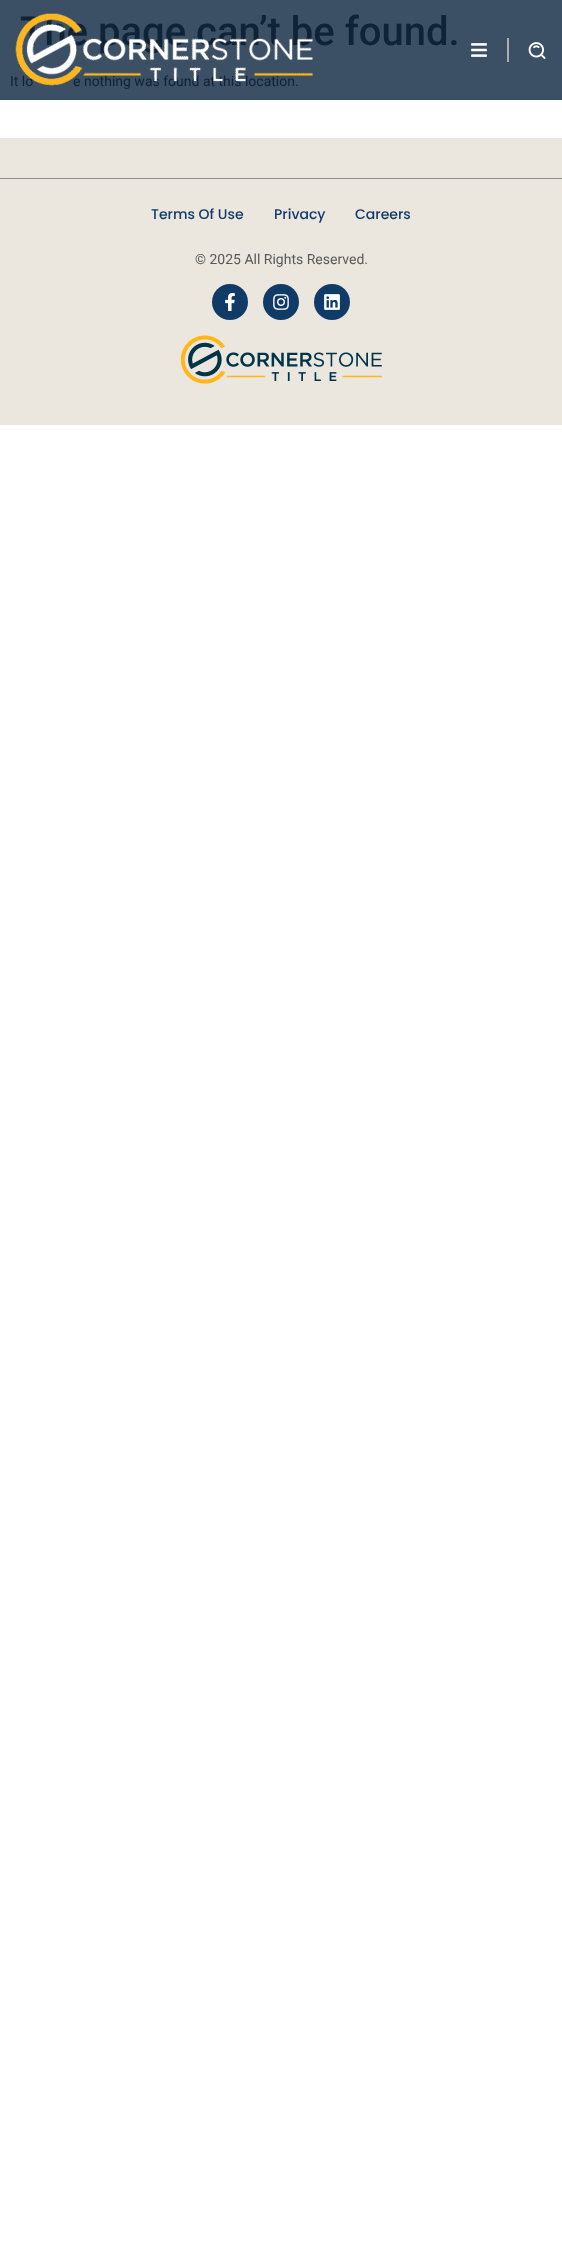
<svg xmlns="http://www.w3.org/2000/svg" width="562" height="2248">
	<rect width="100%" height="100%" fill="#FFFFFF" />
	<rect x="0" y="0" width="562" height="100" fill="#3B4F65" />
	<text x="20" y="45" font-family="Roboto" font-size="40" font-weight="500" fill="#0E2238">The page can’t be found.</text>
	<g font-family="Roboto" font-size="14" fill="#0E2238">
		<text x="10" y="86">It lo</text>
		<text x="73" y="86">e nothing was found at this location.</text>
	</g>
	<image x="15" y="13" width="298" height="74" href="assets/img1.png" />
	<image x="471" y="43" width="16" height="14" href="assets/img2.png" />
	<rect x="507" y="38" width="2" height="24" fill="#ABACAD" />
	<image x="528" y="42" width="18" height="17" href="assets/img3.png" />
	<rect x="0" y="138" width="562" height="287" fill="#EBE7DF" />
	<rect x="0" y="178" width="562" height="1" fill="#8F9091" />
	<g font-family="Poppins" font-size="14" font-weight="500" fill="#113B67">
		<text x="151" y="219">Terms Of Use</text>
		<text x="274" y="219">Privacy</text>
		<text x="355" y="219">Careers</text>
	</g>
	<text x="195" y="264" font-family="Roboto" font-size="14" fill="#58595B">© 2025 All Rights Reserved.</text>
	<circle cx="230" cy="302" r="18" fill="#113B67" />
	<image x="225" y="293" width="10" height="18" href="assets/img4.png" />
	<circle cx="281" cy="302" r="18" fill="#113B67" />
	<image x="273" y="294" width="16" height="16" href="assets/img5.png" />
	<circle cx="332" cy="302" r="18" fill="#113B67" />
	<image x="324" y="294" width="16" height="16" href="assets/img6.png" />
	<image x="180" y="335" width="202" height="49" href="assets/img7.png" />
</svg>
